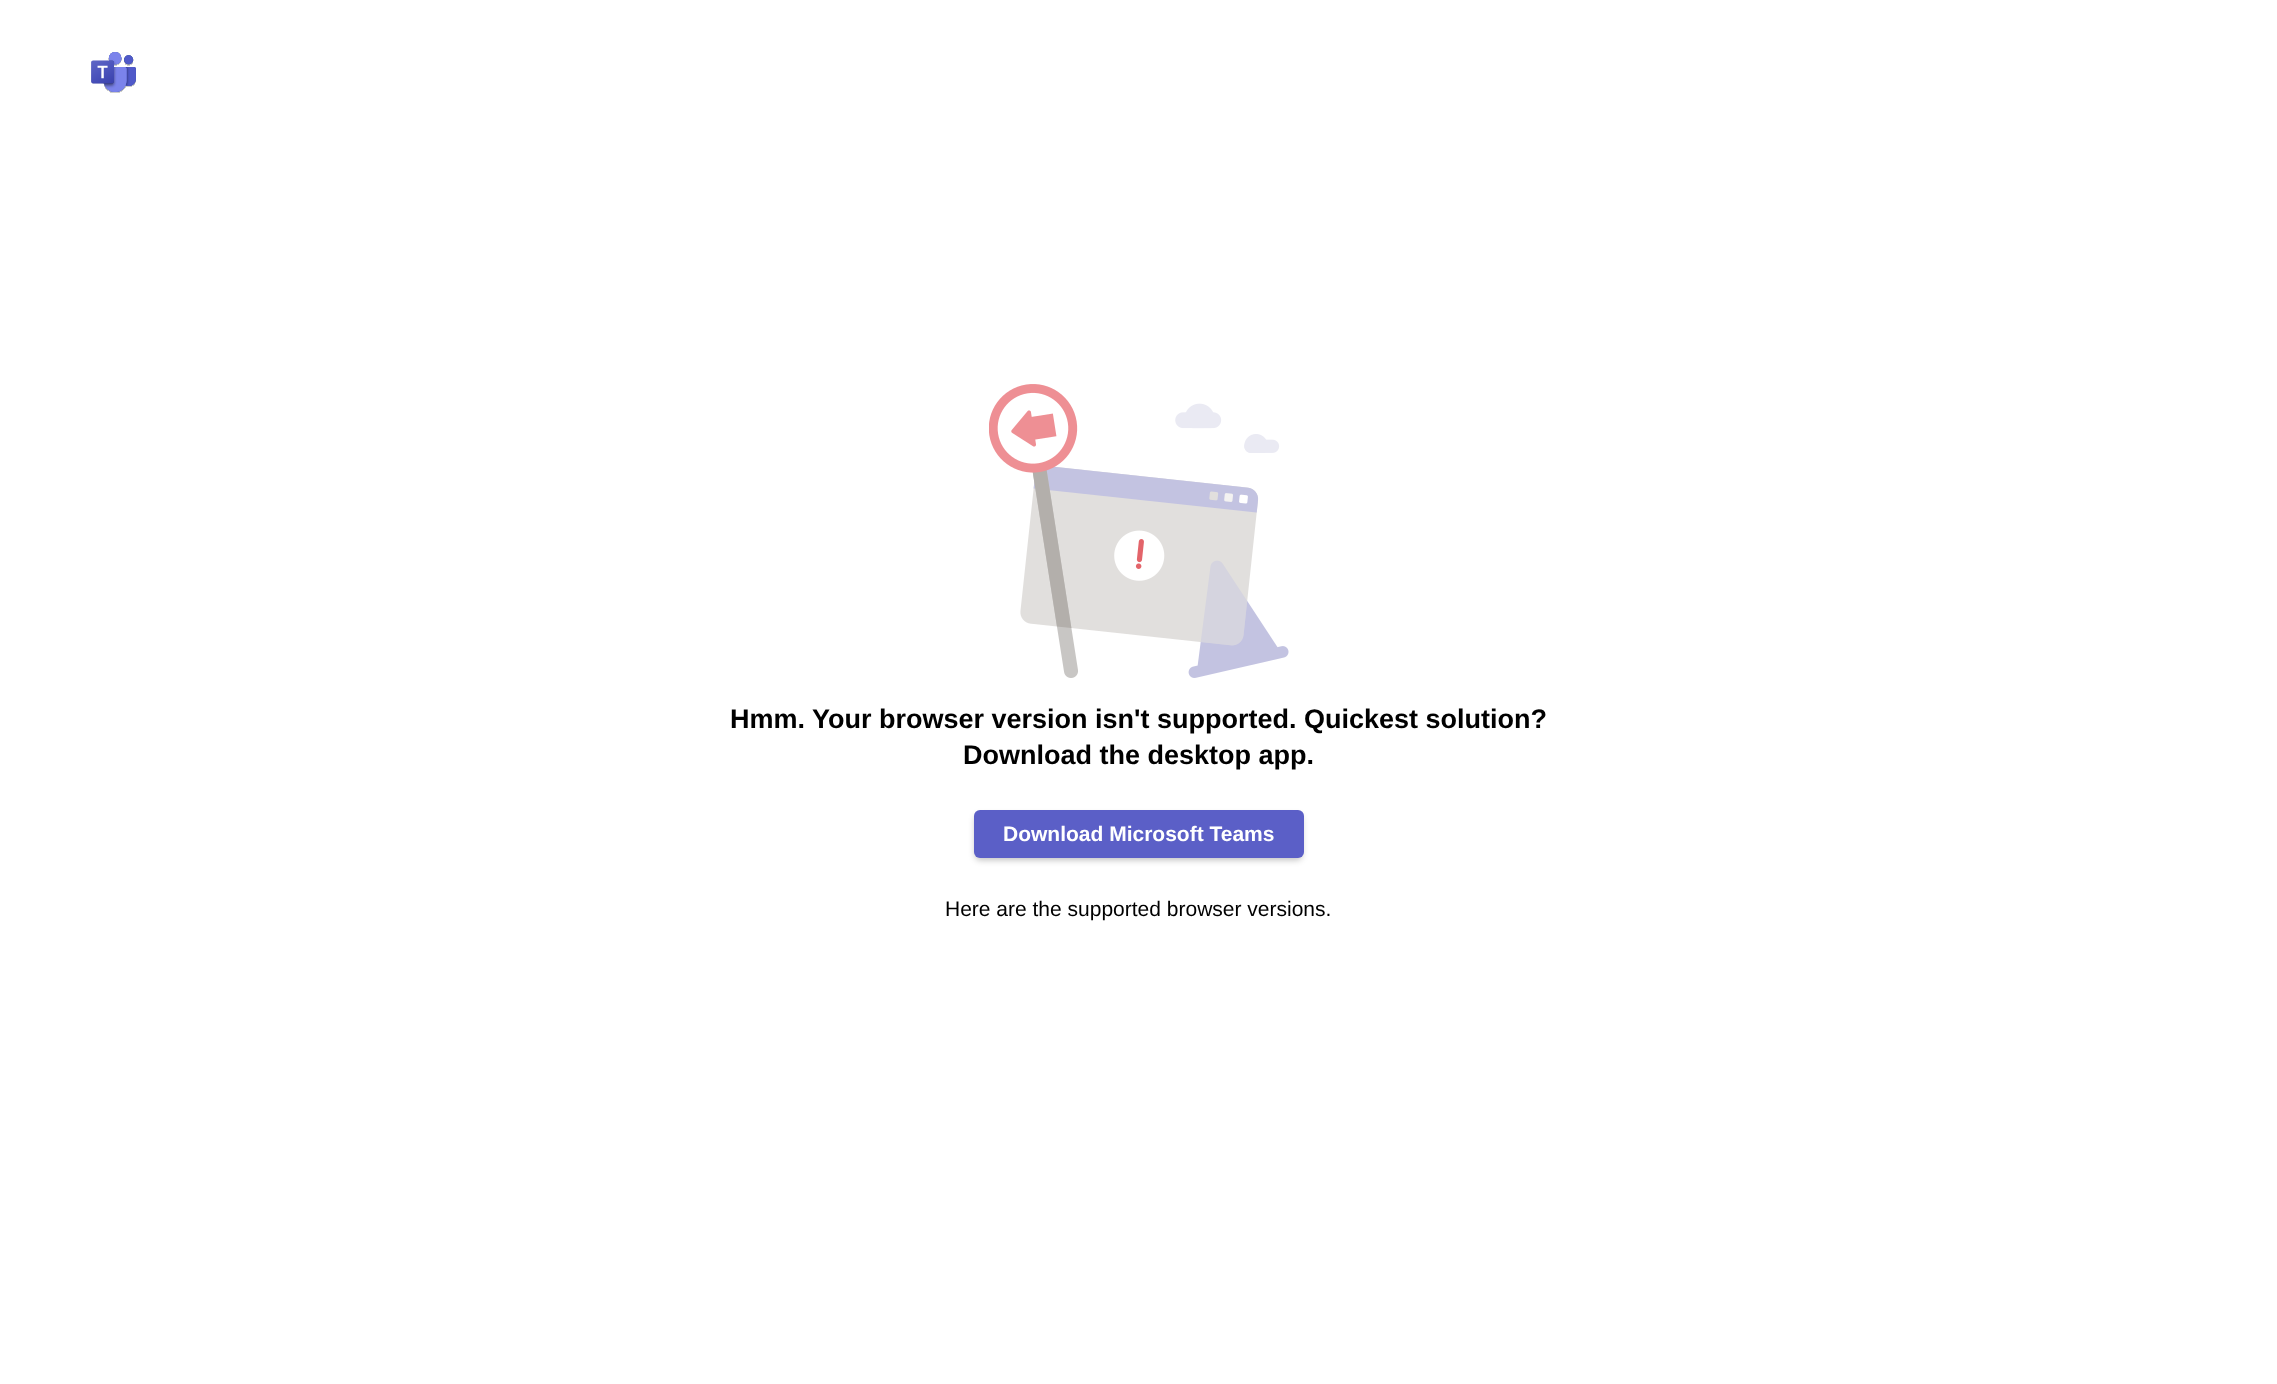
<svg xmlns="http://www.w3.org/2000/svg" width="2277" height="1384">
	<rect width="100%" height="100%" fill="#FFFFFF" />
	<image x="91" y="52" width="45" height="41" href="assets/img1.png" />
	<image x="989" y="384" width="300" height="294" href="assets/img2.png" />
	<g font-family="Liberation Sans" font-size="27" font-weight="700" fill="#000000">
		<text x="730" y="728">Hmm. Your browser version isn't supported. Quickest solution?</text>
		<text x="963" y="764">Download the desktop app.</text>
	</g>
	<rect x="975" y="815" width="327" height="45" rx="5" fill="#000000" fill-opacity="0.25" filter="blur(3px)" />
	<rect x="974" y="810" width="330" height="48" rx="6" fill="#5B5FC7" />
	<text x="1003" y="841" font-family="Liberation Sans" font-size="21" font-weight="700" fill="#FFFFFF">Download Microsoft Teams</text>
	<text x="945" y="916" font-family="Liberation Sans" font-size="21" fill="#000000">Here are the supported browser versions.</text>
</svg>
